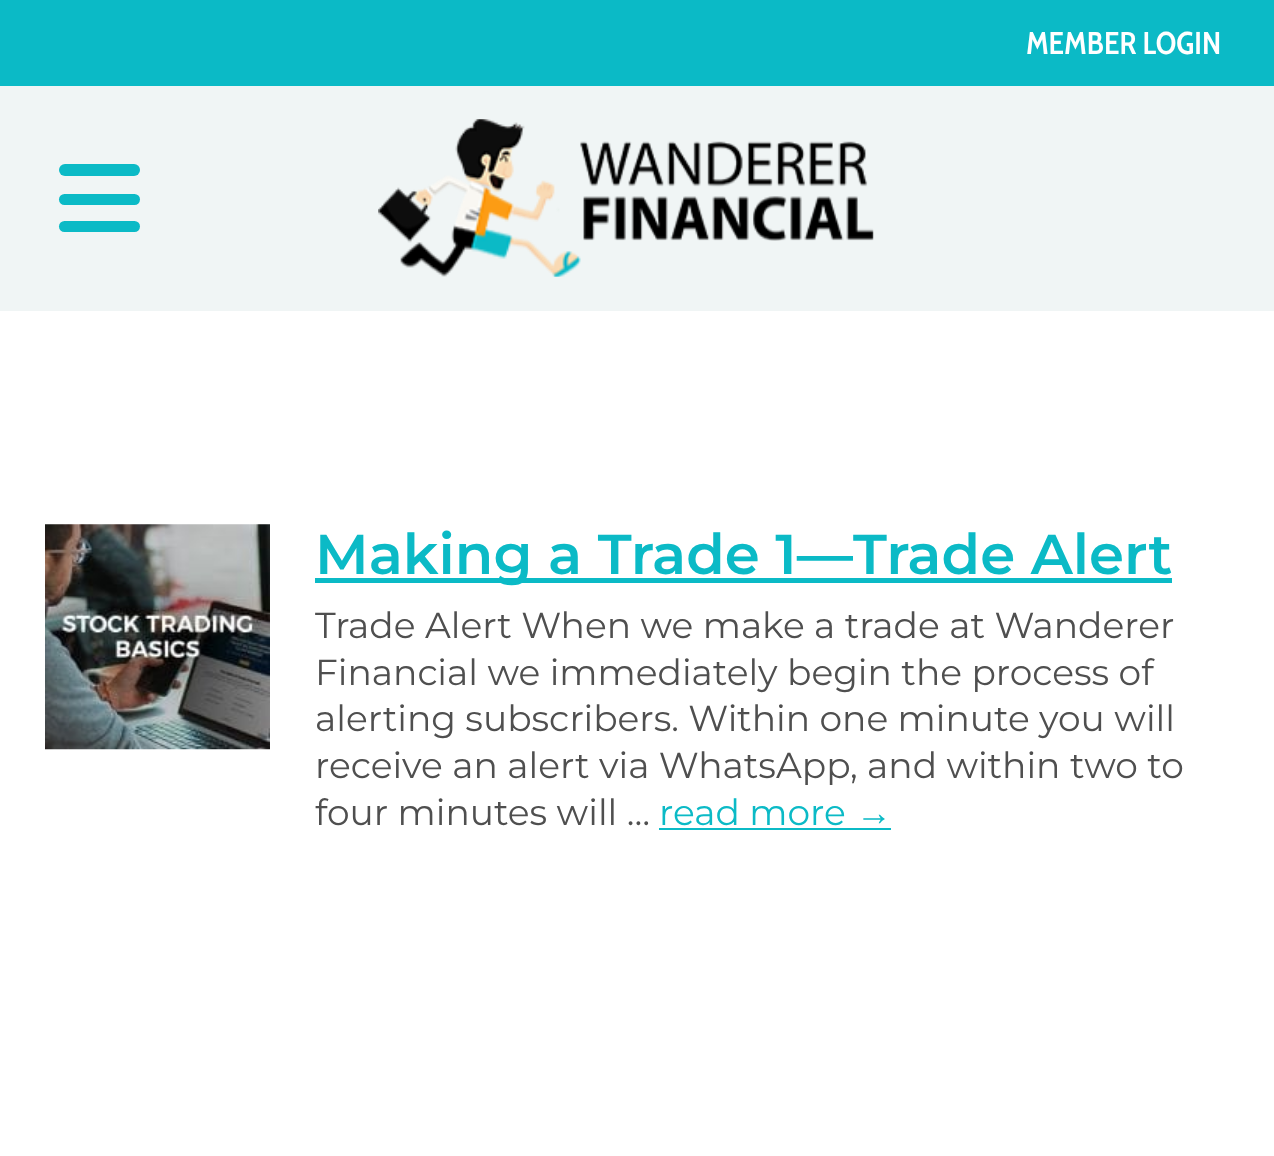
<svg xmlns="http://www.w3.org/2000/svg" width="1274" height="1156">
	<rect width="100%" height="100%" fill="#F0F5F5" />
	<rect x="0" y="0" width="1274" height="86" fill="#0BBAC6" />
	<text x="1026" y="54" font-family="Cabin Condensed" font-size="31.5" font-weight="600" fill="#FFFFFF">MEMBER LOGIN</text>
	<rect x="59" y="164" width="81" height="12" rx="6" fill="#0BBAC6" />
	<rect x="59" y="194" width="81" height="11" rx="5.5" fill="#0BBAC6" />
	<rect x="59" y="221" width="81" height="11" rx="5.5" fill="#0BBAC6" />
	<image x="378" y="119" width="203" height="158" href="assets/img1.png" />
	<image x="580" y="141" width="294" height="100" href="assets/img2.png" />
	<rect x="0" y="311" width="1274" height="845" fill="#FFFFFF" />
	<image x="45" y="524" width="225" height="226" href="assets/img3.png" />
	<rect x="315" y="578" width="857" height="5" fill="#0BBAC6" />
	<text x="315" y="574" font-family="Montserrat" font-size="56.25" font-weight="600" fill="#0BBAC6">Making a Trade 1—Trade Alert</text>
	<g font-family="Montserrat" font-size="36" fill="#4F4F4F">
		<text x="315" y="638">Trade Alert When we make a trade at Wanderer</text>
		<text x="315" y="685">Financial we immediately begin the process of</text>
		<text x="315" y="731">alerting subscribers. Within one minute you will</text>
		<text x="315" y="778">receive an alert via WhatsApp, and within two to</text>
		<text x="315" y="825">four minutes will …</text>
	</g>
	<text x="659" y="825" font-family="Montserrat" font-size="36" fill="#0BBAC6">read more</text>
	<text x="856" y="825" font-family="Liberation Serif" font-size="36" fill="#0BBAC6">→</text>
	<rect x="659" y="828" width="232" height="2" fill="#0BBAC6" />
</svg>
